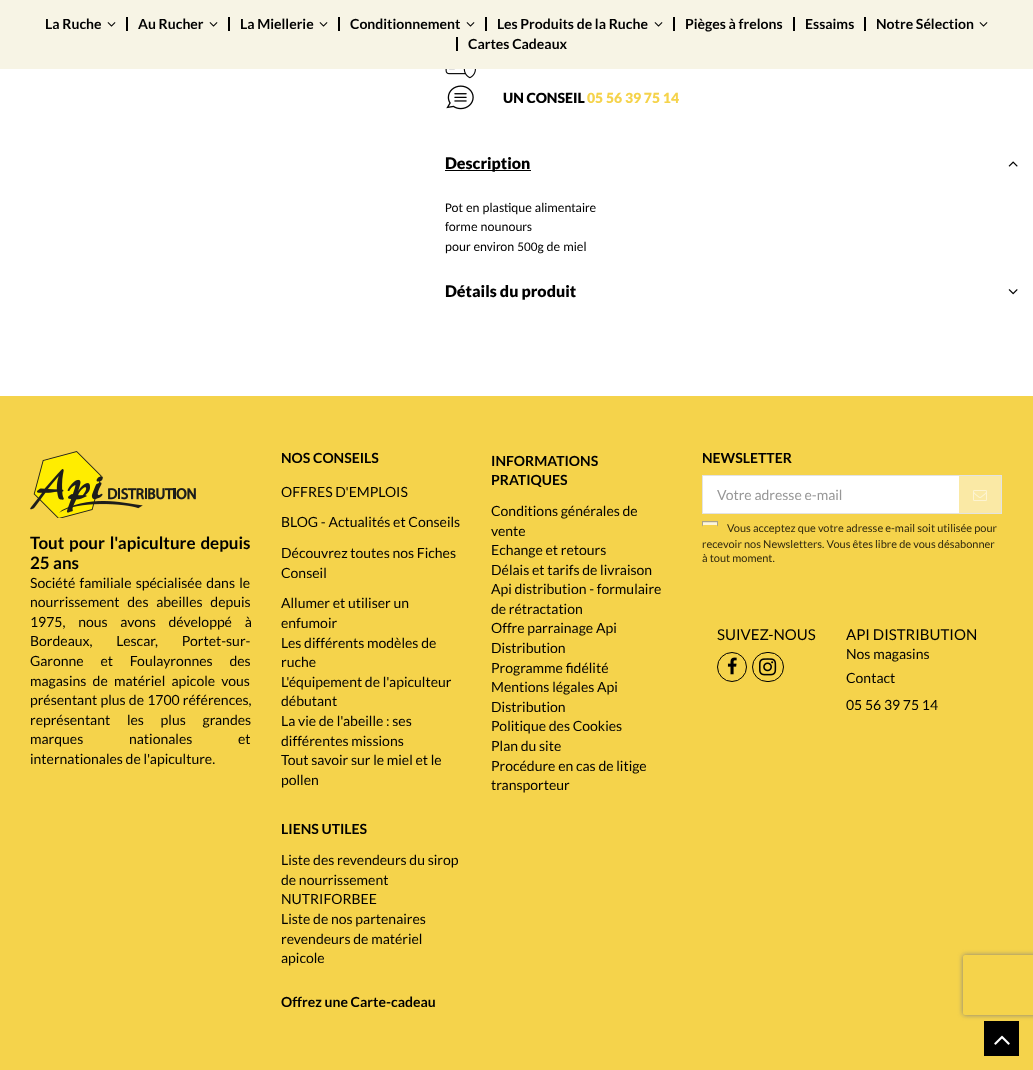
<svg xmlns="http://www.w3.org/2000/svg" width="1033" height="1070">
	<defs>
		<clipPath id="clip1"><path d="M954 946H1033V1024H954ZM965 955H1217C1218 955 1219 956 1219 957V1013C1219 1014 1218 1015 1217 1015H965C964 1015 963 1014 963 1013V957C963 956 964 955 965 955Z" clip-rule="evenodd" /></clipPath>
	</defs>
	<rect width="100%" height="100%" fill="#FFFFFF" />
	<rect x="0" y="0" width="1033" height="69" fill="#F7F4E5" />
	<text x="45" y="29" font-family="Lato" font-size="14" font-weight="700" fill="#000000">La Ruche</text>
	<image x="107" y="22" width="9" height="5" href="assets/img1.png" />
	<rect x="126" y="17" width="2" height="14" fill="#000000" />
	<text x="138" y="29" font-family="Lato" font-size="14" font-weight="700" fill="#000000">Au Rucher</text>
	<image x="209" y="22" width="9" height="5" href="assets/img1.png" />
	<rect x="228" y="17" width="2" height="14" fill="#000000" />
	<text x="240" y="29" font-family="Lato" font-size="14" font-weight="700" fill="#000000">La Miellerie</text>
	<image x="319" y="22" width="9" height="5" href="assets/img1.png" />
	<rect x="338" y="17" width="2" height="14" fill="#000000" />
	<text x="350" y="29" font-family="Lato" font-size="14" font-weight="700" fill="#000000">Conditionnement</text>
	<image x="466" y="22" width="9" height="5" href="assets/img1.png" />
	<rect x="485" y="17" width="2" height="14" fill="#000000" />
	<text x="497" y="29" font-family="Lato" font-size="14" font-weight="700" fill="#000000">Les Produits de la Ruche</text>
	<image x="654" y="22" width="9" height="5" href="assets/img1.png" />
	<rect x="673" y="17" width="2" height="14" fill="#000000" />
	<text x="685" y="29" font-family="Lato" font-size="14" font-weight="700" fill="#000000">Pièges à frelons</text>
	<rect x="793" y="17" width="2" height="14" fill="#000000" />
	<text x="805" y="29" font-family="Lato" font-size="14" font-weight="700" fill="#000000">Essaims</text>
	<rect x="864" y="17" width="2" height="14" fill="#000000" />
	<text x="876" y="29" font-family="Lato" font-size="14" font-weight="700" fill="#000000">Notre Sélection</text>
	<image x="979" y="22" width="9" height="5" href="assets/img1.png" />
	<rect x="456" y="37" width="2" height="14" fill="#000000" />
	<text x="468" y="49" font-family="Lato" font-size="14" font-weight="700" fill="#000000">Cartes Cadeaux</text>
	<image x="445" y="69" width="31" height="10" href="assets/img2.png" />
	<image x="446" y="85" width="28" height="25" href="assets/img3.png" />
	<text x="503" y="103" font-family="Lato" font-size="14" font-weight="900" fill="#000000">UN CONSEIL</text>
	<text x="587" y="103" font-family="Lato" font-size="14" font-weight="900" fill="#F5D34B">05 56 39 75 14</text>
	<rect x="445" y="170" width="86" height="1" fill="#000000" />
	<text x="445" y="169" font-family="Lato" font-size="16" font-weight="900" fill="#000000">Description</text>
	<image x="1008" y="161" width="10" height="6" href="assets/img4.png" />
	<g font-family="Carlito" font-size="13.25" fill="#000000">
		<text x="445" y="212">Pot en plastique alimentaire</text>
		<text x="445" y="231">forme nounours</text>
		<text x="445" y="251">pour environ 500g de miel</text>
	</g>
	<text x="445" y="297" font-family="Lato" font-size="16" font-weight="900" fill="#000000">Détails du produit</text>
	<image x="1008" y="289" width="10" height="6" href="assets/img5.png" />
	<rect x="0" y="396" width="1033" height="674" fill="#F5D34B" />
	<image x="30" y="451" width="166" height="67" href="assets/img6.png" />
	<g font-family="Lato" font-size="17" font-weight="700" fill="#000000">
		<text x="30" y="549" word-spacing="1.5">Tout pour l'apiculture depuis</text>
		<text x="30" y="569">25 ans</text>
	</g>
	<g font-family="Lato" font-size="14" fill="#000000">
		<text x="30" y="588" word-spacing="1.5">Société familiale spécialisée dans le</text>
		<text x="30" y="607" word-spacing="5">nourrissement des abeilles depuis</text>
		<text x="30" y="627" word-spacing="10">1975, nous avons développé à</text>
		<text x="30" y="646" word-spacing="21">Bordeaux, Lescar, Portet-sur-</text>
		<text x="30" y="666" word-spacing="14">Garonne et Foulayronnes des</text>
		<text x="30" y="686" word-spacing="3.5">magasins de matériel apicole vous</text>
		<text x="30" y="705" word-spacing="0.5">présentant plus de 1700 références,</text>
		<text x="30" y="725" word-spacing="14">représentant les plus grandes</text>
		<text x="30" y="744" word-spacing="43">marques nationales et</text>
		<text x="30" y="764">internationales de l'apiculture.</text>
	</g>
	<text x="281" y="463" font-family="Lato" font-size="14" font-weight="700" fill="#000000">NOS CONSEILS</text>
	<g font-family="Lato" font-size="14" fill="#000000">
		<text x="281" y="497">OFFRES D'EMPLOIS</text>
		<text x="281" y="527">BLOG - Actualités et Conseils</text>
		<text x="281" y="558">Découvrez toutes nos Fiches</text>
		<text x="281" y="578">Conseil</text>
		<text x="281" y="608">Allumer et utiliser un</text>
		<text x="281" y="628">enfumoir</text>
		<text x="281" y="648">Les différents modèles de</text>
		<text x="281" y="667">ruche</text>
		<text x="281" y="687">L'équipement de l'apiculteur</text>
		<text x="281" y="706">débutant</text>
		<text x="281" y="726">La vie de l'abeille : ses</text>
		<text x="281" y="746">différentes missions</text>
		<text x="281" y="765">Tout savoir sur le miel et le</text>
		<text x="281" y="785">pollen</text>
	</g>
	<text x="281" y="834" font-family="Lato" font-size="14" font-weight="700" fill="#000000">LIENS UTILES</text>
	<g font-family="Lato" font-size="14" fill="#000000">
		<text x="281" y="865">Liste des revendeurs du sirop</text>
		<text x="281" y="885">de nourrissement</text>
		<text x="281" y="904">NUTRIFORBEE</text>
		<text x="281" y="924">Liste de nos partenaires</text>
		<text x="281" y="944">revendeurs de matériel</text>
		<text x="281" y="963">apicole</text>
	</g>
	<g font-family="Lato" font-size="14" font-weight="700" fill="#000000">
		<text x="281" y="1007">Offrez une Carte-cadeau</text>
		<text x="491" y="466">INFORMATIONS</text>
		<text x="491" y="485">PRATIQUES</text>
	</g>
	<g font-family="Lato" font-size="14" fill="#000000">
		<text x="491" y="516">Conditions générales de</text>
		<text x="491" y="536">vente</text>
		<text x="491" y="555">Echange et retours</text>
		<text x="491" y="575">Délais et tarifs de livraison</text>
		<text x="491" y="594">Api distribution - formulaire</text>
		<text x="491" y="614">de rétractation</text>
		<text x="491" y="633">Offre parrainage Api</text>
		<text x="491" y="653">Distribution</text>
		<text x="491" y="673">Programme fidélité</text>
		<text x="491" y="692">Mentions légales Api</text>
		<text x="491" y="712">Distribution</text>
		<text x="491" y="731">Politique des Cookies</text>
		<text x="491" y="751">Plan du site</text>
		<text x="491" y="771">Procédure en cas de litige</text>
		<text x="491" y="790">transporteur</text>
	</g>
	<text x="702" y="463" font-family="Lato" font-size="14" font-weight="700" fill="#000000">NEWSLETTER</text>
	<rect x="703" y="476" width="256" height="37" fill="#FFFFFF" />
	<rect x="702.5" y="475.5" width="299" height="38" fill="none" stroke="#E3E3E3" />
	<text x="717" y="500" font-family="Lato" font-size="14" fill="#979797">Votre adresse e-mail</text>
	<rect x="959" y="476" width="42" height="37" fill="#FAE9A5" />
	<image x="973" y="490" width="14" height="11" href="assets/img7.png" />
	<rect x="703" y="523" width="14" height="3" fill="#FDF6DB" />
	<rect x="703" y="522" width="14" height="1" fill="#EBE4C9" />
	<rect x="702.5" y="521.5" width="15" height="15" fill="none" stroke="#AAA388" />
	<g font-family="Lato" font-size="11" fill="#312A0F">
		<text x="727" y="532">Vous acceptez que votre adresse e-mail soit utilisée pour</text>
		<text x="702" y="548">recevoir nos Newsletters. Vous êtes libre de vous désabonner</text>
	</g>
	<rect x="702.5" y="525.5" width="15" height="15" rx="1.5" fill="#F5D34B" stroke="#F5D34B" />
	<text x="702" y="562" font-family="Lato" font-size="11" fill="#312A0F">à tout moment.</text>
	<rect x="984" y="1021" width="35" height="35" fill="#000000" />
	<g clip-path="url(#clip1)">
		<rect x="963" y="955" width="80" height="60" rx="2" fill="#808080" filter="blur(2.5px)" />
	</g>
	<text x="717" y="640" font-family="Lato" font-size="15" fill="#000000">SUIVEZ-NOUS</text>
	<circle cx="732" cy="667" r="14.5" fill="none" stroke="#000000" />
	<image x="727" y="657" width="10" height="18" href="assets/img8.png" />
	<rect x="752.5" y="652.5" width="31" height="29" rx="14.5" fill="none" stroke="#000000" />
	<image x="759" y="658" width="18" height="18" href="assets/img9.png" />
	<text x="846" y="640" font-family="Lato" font-size="15" fill="#000000">API DISTRIBUTION</text>
	<g font-family="Lato" font-size="14" fill="#000000">
		<text x="846" y="659">Nos magasins</text>
		<text x="846" y="683">Contact</text>
		<text x="846" y="710">05 56 39 75 14</text>
	</g>
	<image x="994" y="1035" width="16" height="10" href="assets/img10.png" />
</svg>
